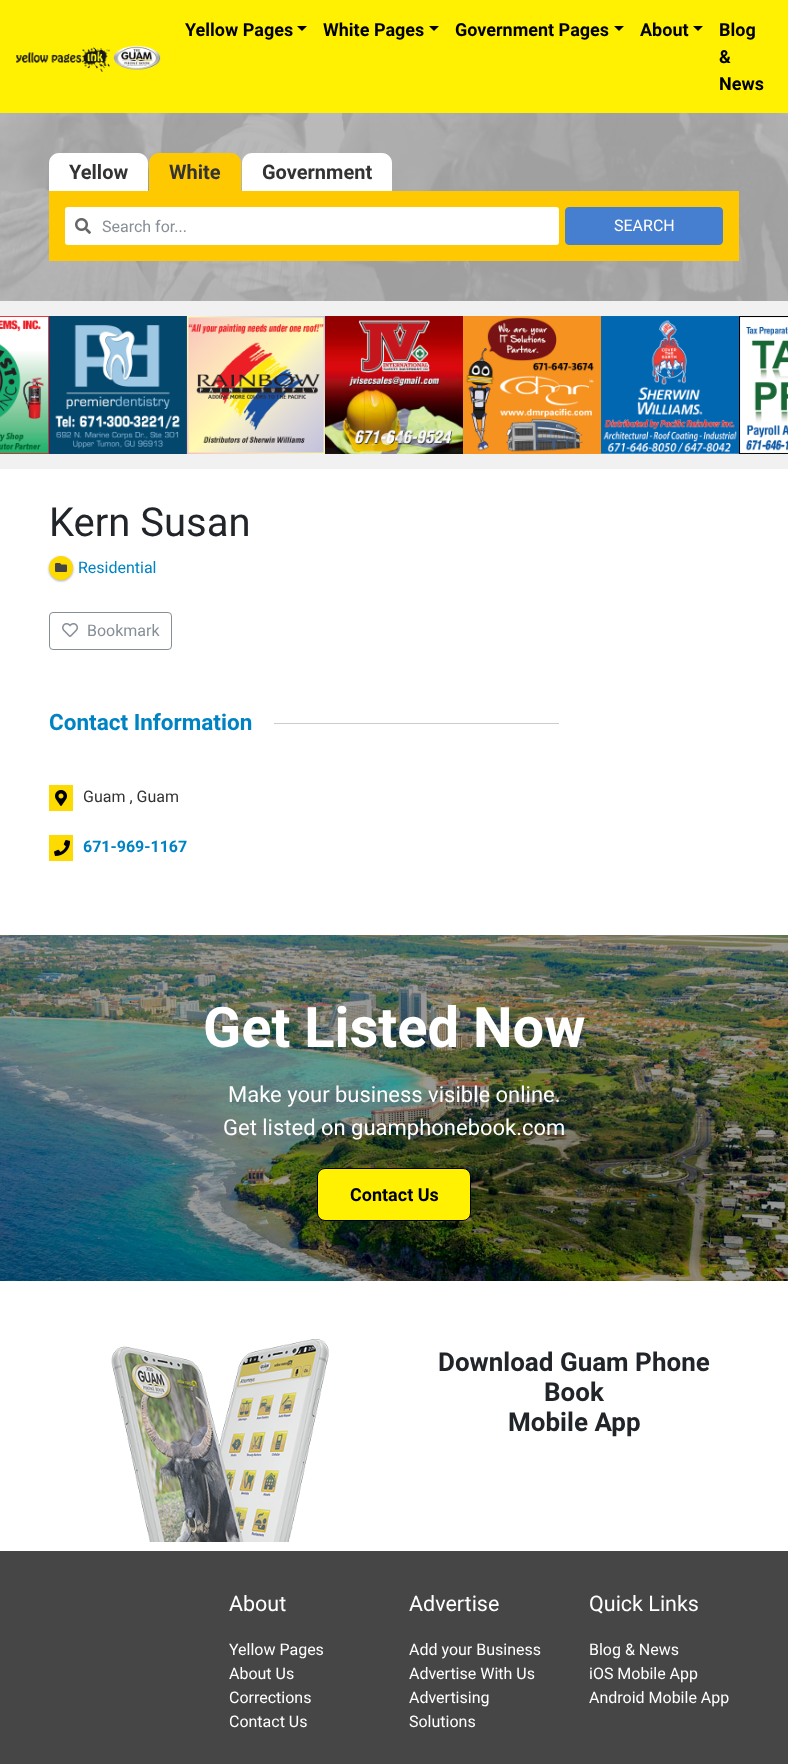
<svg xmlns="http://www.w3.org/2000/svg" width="788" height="1764">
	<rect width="100%" height="100%" fill="#FFFFFF" />
	<rect x="0" y="0" width="788" height="113" fill="#FFF101" />
	<image x="16" y="45" width="145" height="27" href="assets/img1.png" />
	<text x="185" y="36" font-family="Roboto" font-size="18" font-weight="700" fill="#000000">Yellow Pages</text>
	<path d="M297 26H307L302 31Z" fill="#000000" />
	<text x="323" y="36" font-family="Roboto" font-size="18" font-weight="700" fill="#000000">White Pages</text>
	<path d="M429 26H439L434 31Z" fill="#000000" />
	<text x="455" y="36" font-family="Roboto" font-size="18" font-weight="700" fill="#000000">Government Pages</text>
	<path d="M614 26H624L619 31Z" fill="#000000" />
	<text x="640" y="36" font-family="Roboto" font-size="18" font-weight="700" fill="#000000">About</text>
	<path d="M693 26H703L698 31Z" fill="#000000" />
	<g font-family="Roboto" font-size="18" font-weight="700" fill="#000000">
		<text x="719" y="36">Blog</text>
		<text x="719" y="63">&amp;</text>
		<text x="719" y="90">News</text>
	</g>
	<image x="0" y="113" width="788" height="188" href="assets/img2.png" />
	<path d="M59 153H138C143.5 153 148 157.5 148 163V191H49V163C49 157.5 53.5 153 59 153Z" fill="#FFFFFF" />
	<text x="69" y="179" font-family="Roboto" font-size="20" font-weight="700" fill="#333333">Yellow</text>
	<path d="M159 153H231C236.5 153 241 157.5 241 163V191H149V163C149 157.5 153.5 153 159 153Z" fill="#FEC901" />
	<text x="169" y="179" font-family="Roboto" font-size="20" font-weight="700" fill="#333333">White</text>
	<path d="M252 153H382C387.5 153 392 157.5 392 163V191H242V163C242 157.5 246.5 153 252 153Z" fill="#FFFFFF" />
	<text x="262" y="179" font-family="Roboto" font-size="20" font-weight="700" fill="#333333">Government</text>
	<rect x="49" y="191" width="690" height="70" fill="#FEC901" />
	<rect x="65" y="207" width="494" height="38" rx="3" fill="#FFFFFF" />
	<image x="75" y="218" width="16" height="16" href="assets/img3.png" />
	<text x="102" y="232" font-family="Roboto" font-size="16" fill="#868E96">Search for...</text>
	<rect x="565.5" y="207.5" width="157" height="37" rx="3.5" fill="#467FCF" stroke="#467FCF" />
	<text x="614" y="231" font-family="Roboto" font-size="16" fill="#FFFFFF">SEARCH</text>
	<rect x="0" y="301" width="788" height="168" fill="#F1F1F1" />
	<image x="0" y="316" width="49" height="138" href="assets/img4.png" />
	<image x="49" y="316" width="138" height="138" href="assets/img5.png" />
	<image x="187" y="316" width="138" height="138" href="assets/img6.png" />
	<image x="325" y="316" width="138" height="138" href="assets/img7.png" />
	<image x="463" y="316" width="138" height="138" href="assets/img8.png" />
	<image x="601" y="316" width="138" height="138" href="assets/img9.png" />
	<image x="739" y="316" width="49" height="138" href="assets/img10.png" />
	<circle cx="387" cy="439" r="6" fill="#FFFFFF" fill-opacity="0.7" />
	<circle cx="401" cy="439" r="4" fill="#CCCCCC" fill-opacity="0.7" />
	<text x="49" y="536" font-family="Roboto" font-size="40" fill="#212529">Kern Susan</text>
	<rect x="49" y="557" width="24" height="24" rx="12" fill="#000000" fill-opacity="0.24" filter="blur(1px)" />
	<rect x="49" y="557" width="24" height="24" rx="12" fill="#000000" fill-opacity="0.12" filter="blur(1.5px)" />
	<circle cx="61" cy="568" r="12" fill="#FEDB00" />
	<image x="55" y="563" width="12" height="9" href="assets/img11.png" />
	<text x="78" y="573" font-family="Roboto" font-size="16" fill="#0083C3">Residential</text>
	<rect x="49.5" y="612.5" width="122" height="37" rx="3.5" fill="none" stroke="#868E96" />
	<image x="62" y="623" width="16" height="14" href="assets/img12.png" />
	<text x="87" y="636" font-family="Roboto" font-size="16" fill="#868E96">Bookmark</text>
	<text x="49" y="730" font-family="Roboto" font-size="22.5" font-weight="700" fill="#0083C3">Contact Information</text>
	<rect x="274" y="723" width="285" height="1" fill="#CCCCCC" />
	<rect x="49" y="785" width="24" height="26" fill="#FEDB00" />
	<image x="55" y="790" width="12" height="16" href="assets/img13.png" />
	<text x="83" y="802" font-family="Roboto" font-size="16" fill="#333333">Guam , Guam</text>
	<rect x="49" y="835" width="24" height="26" fill="#FEDB00" />
	<image x="54" y="840" width="16" height="16" href="assets/img14.png" />
	<text x="83" y="852" font-family="Roboto" font-size="16" font-weight="700" fill="#0083C3">671-969-1167</text>
	<image x="0" y="935" width="788" height="346" href="assets/img15.png" />
	<text x="203" y="1047" font-family="Roboto" font-size="56" font-weight="700" fill="#FFFFFF">Get Listed Now</text>
	<g font-family="Roboto" font-size="22" fill="#FFFFFF">
		<text x="228" y="1102">Make your business visible online.</text>
		<text x="223" y="1135">Get listed on guamphonebook.com</text>
	</g>
	<rect x="317.5" y="1168.5" width="153" height="52" rx="7.5" fill="#FFF101" stroke="#000000" />
	<text x="350" y="1201" font-family="Roboto" font-size="18" font-weight="700" fill="#000000">Contact Us</text>
	<image x="111" y="1339" width="218" height="203" href="assets/img16.png" />
	<g font-family="Roboto" font-size="26" font-weight="700" fill="#212529">
		<text x="438" y="1371">Download Guam Phone</text>
		<text x="544" y="1401">Book</text>
		<text x="508" y="1431">Mobile App</text>
	</g>
	<rect x="0" y="1551" width="788" height="213" fill="#464646" />
	<text x="229" y="1611" font-family="Roboto" font-size="21.5" fill="#FFFFFF">About</text>
	<g font-family="Roboto" font-size="16" fill="#FFFFFF">
		<text x="229" y="1655">Yellow Pages</text>
		<text x="229" y="1679">About Us</text>
		<text x="229" y="1703">Corrections</text>
		<text x="229" y="1727">Contact Us</text>
	</g>
	<text x="409" y="1611" font-family="Roboto" font-size="21.5" fill="#FFFFFF">Advertise</text>
	<g font-family="Roboto" font-size="16" fill="#FFFFFF">
		<text x="409" y="1655">Add your Business</text>
		<text x="409" y="1679">Advertise With Us</text>
		<text x="409" y="1703">Advertising</text>
		<text x="409" y="1727">Solutions</text>
	</g>
	<text x="589" y="1611" font-family="Roboto" font-size="21.5" fill="#FFFFFF">Quick Links</text>
	<g font-family="Roboto" font-size="16" fill="#FFFFFF">
		<text x="589" y="1655">Blog &amp; News</text>
		<text x="589" y="1679">iOS Mobile App</text>
		<text x="589" y="1703">Android Mobile App</text>
	</g>
</svg>
